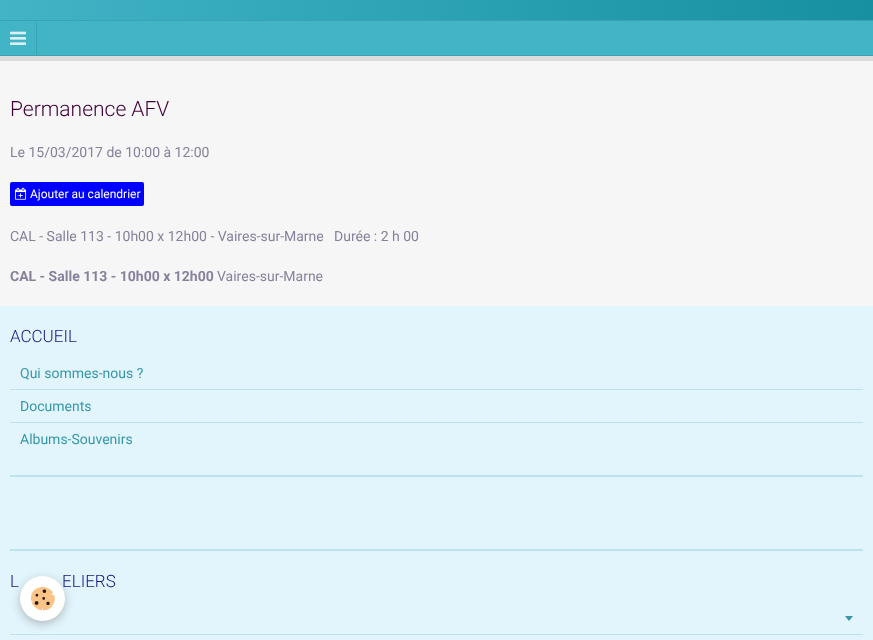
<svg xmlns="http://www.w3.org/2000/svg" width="873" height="640">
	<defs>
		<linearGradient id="g1" gradientUnits="userSpaceOnUse" x1="0" y1="28" x2="873" y2="28"><stop offset="0" stop-color="#41B4C6" /><stop offset="1" stop-color="#1790A2" /></linearGradient>
	</defs>
	<rect width="100%" height="100%" fill="#F6F6F6" />
	<rect x="0" y="56" width="873" height="5" fill="#DDDDDD" />
	<rect x="0" y="0" width="873" height="20" fill="url(#g1)" />
	<rect x="0" y="21" width="873" height="34" fill="#41B4C6" />
	<rect x="0" y="20" width="873" height="1" fill="#3BA2B2" />
	<rect x="0" y="55" width="873" height="1" fill="#3BA2B2" />
	<path d="M37 21V55L36 54V22Z" fill="#3BA2B2" />
	<image x="10" y="31" width="16" height="14" href="assets/img1.png" />
	<text x="10" y="116" font-family="Roboto" font-size="21" font-weight="300" fill="#3F0038">Permanence AFV</text>
	<text x="10" y="157" font-family="Roboto" font-size="14" fill="#88819C">Le 15/03/2017 de 10:00 à 12:00</text>
	<rect x="10" y="182" width="134" height="24" rx="2" fill="#0000FF" />
	<image x="15" y="187" width="12" height="13" href="assets/img2.png" />
	<text x="30" y="198" font-family="Roboto" font-size="12" fill="#FFFFFF">Ajouter au calendrier</text>
	<g font-family="Roboto" font-size="14" fill="#88819C">
		<text x="10" y="241">CAL - Salle 113 - 10h00 x 12h00 - Vaires-sur-Marne</text>
		<text x="334" y="241">Durée : 2 h 00</text>
	</g>
	<text x="10" y="281" font-family="Roboto" font-size="14" font-weight="700" fill="#88819C">CAL - Salle 113 - 10h00 x 12h00</text>
	<text x="217" y="281" font-family="Roboto" font-size="14" fill="#88819C">Vaires-sur-Marne</text>
	<rect x="0" y="306" width="873" height="334" fill="#E3F5FC" />
	<text x="10" y="342" font-family="Roboto" font-size="17" font-weight="300" fill="#171783">ACCUEIL</text>
	<rect x="10" y="389" width="853" height="1" fill="#C0E2EB" />
	<text x="20" y="378" font-family="Roboto" font-size="14" fill="#3697A7">Qui sommes-nous ?</text>
	<rect x="10" y="422" width="853" height="1" fill="#C0E2EB" />
	<g font-family="Roboto" font-size="14" fill="#3697A7">
		<text x="20" y="411">Documents</text>
		<text x="20" y="444">Albums-Souvenirs</text>
	</g>
	<rect x="10" y="475" width="853" height="2" fill="#C0E2EB" />
	<rect x="10" y="549" width="853" height="2" fill="#C0E2EB" />
	<g font-family="Roboto" font-size="17" font-weight="300" fill="#171783">
		<text x="10" y="587">L</text>
		<text x="62" y="587">ELIERS</text>
	</g>
	<rect x="10" y="634" width="853" height="1" fill="#C0E2EB" />
	<path d="M845 616H853L849 621Z" fill="#3697A7" />
	<rect x="20" y="579" width="45" height="45" rx="22.5" fill="#000000" fill-opacity="0.24" filter="blur(5px)" />
	<circle cx="42.5" cy="598.5" r="22.5" fill="#FFFFFF" />
	<image x="30" y="586" width="25" height="25" href="assets/img3.png" />
</svg>
